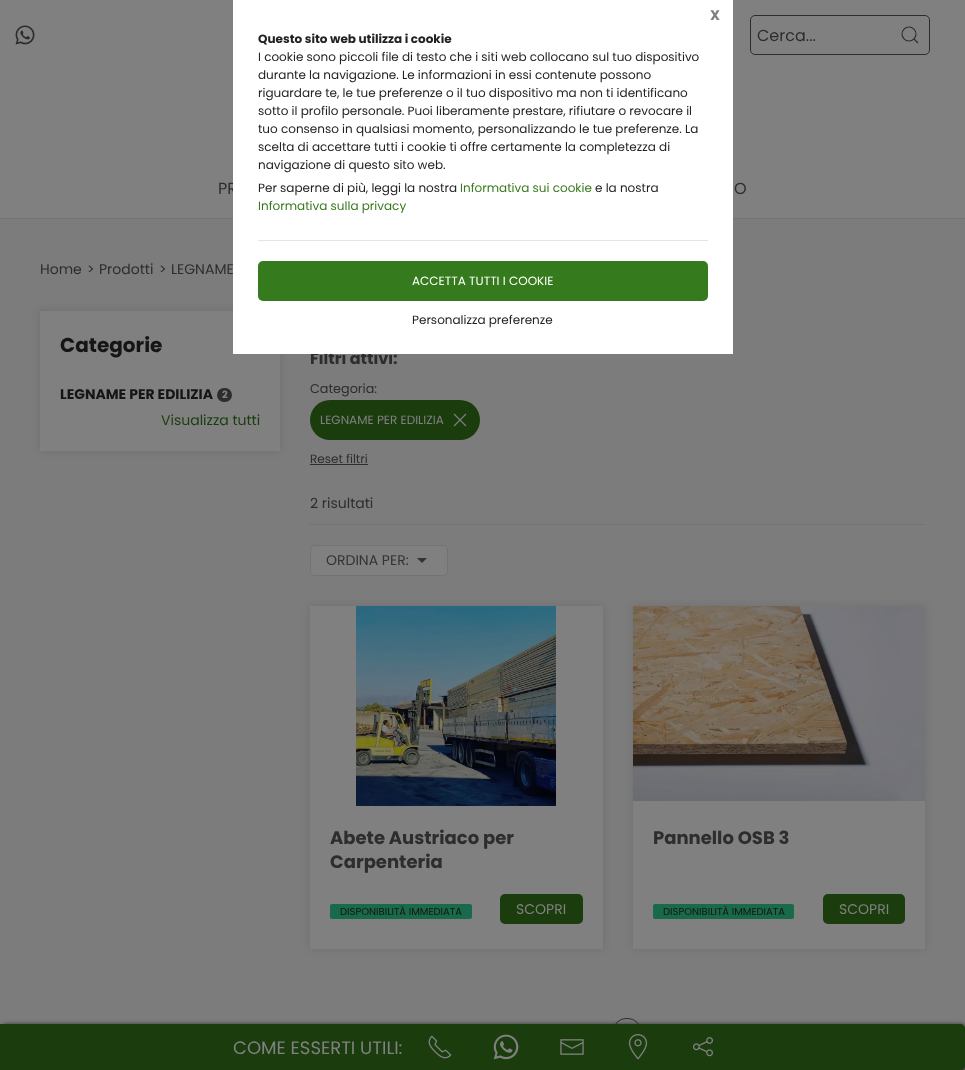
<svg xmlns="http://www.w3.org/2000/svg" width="965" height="1070">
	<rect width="100%" height="100%" fill="#7C7C7C" />
	<rect x="0" y="0" width="965" height="218" fill="#808080" />
	<rect x="0" y="218" width="965" height="1" fill="#737373" />
	<text x="218" y="194" font-family="Poppins" font-size="16" fill="#2D2D2D">PR</text>
	<rect x="40" y="310" width="240" height="141" fill="#000000" fill-opacity="0.1" filter="blur(4px)" />
	<rect x="40" y="311" width="240" height="140" fill="#808080" />
	<text x="310" y="364" font-family="Poppins" font-size="16" font-weight="700" fill="#2D2D2D">Filtri attivi:</text>
	<rect x="233" y="0" width="500" height="354" fill="#FFFFFF" />
	<text x="710" y="20" font-family="Poppins" font-size="14" font-weight="700" fill="#808080">X</text>
	<text x="258" y="43" font-family="Poppins" font-size="12" font-weight="700" fill="#222222">Questo sito web utilizza i cookie</text>
	<g font-family="Poppins" font-size="12" fill="#222222">
		<text x="258" y="61">I cookie sono piccoli file di testo che i siti web collocano sul tuo dispositivo</text>
		<text x="258" y="79">durante la navigazione. Le informazioni in essi contenute possono</text>
		<text x="258" y="97">riguardare te, le tue preferenze o il tuo dispositivo ma non ti identificano</text>
		<text x="258" y="115">sotto il profilo personale. Puoi liberamente prestare, rifiutare o revocare il</text>
		<text x="258" y="133">tuo consenso in qualsiasi momento, personalizzando le tue preferenze. La</text>
		<text x="258" y="151">scelta di accettare tutti i cookie ti offre certamente la completezza di</text>
		<text x="258" y="169">navigazione di questo sito web.</text>
		<text x="258" y="192">Per saperne di più, leggi la nostra</text>
	</g>
	<text x="460" y="192" font-family="Poppins" font-size="12" fill="#357A1C">Informativa sui cookie</text>
	<text x="595" y="192" font-family="Poppins" font-size="12" fill="#222222">e la nostra</text>
	<text x="258" y="210" font-family="Poppins" font-size="12" fill="#357A1C">Informativa sulla privacy</text>
	<rect x="258" y="240" width="450" height="1" fill="#E5E5E5" />
	<rect x="258" y="261" width="450" height="40" rx="5" fill="#357A1C" />
	<text x="412" y="285" font-family="Poppins" font-size="12" fill="#FFFFFF">ACCETTA TUTTI I COOKIE</text>
	<text x="412" y="324" font-family="Poppins" font-size="12" fill="#222222">Personalizza preferenze</text>
	<image x="15" y="25" width="20" height="20" href="assets/img1.png" />
	<rect x="750.5" y="15.5" width="179" height="39" rx="4.5" fill="none" stroke="#2D2D2D" />
	<text x="757" y="41" font-family="Poppins" font-size="16" fill="#2D2D2D">Cerca...</text>
	<circle cx="909" cy="34" r="7" fill="none" stroke="#2D2D2D" stroke-width="1.1" />
	<path d="M914 39L918 43Z" fill="none" stroke="#2D2D2D" stroke-width="1.1" />
	<text x="734" y="194" font-family="Poppins" font-size="16" fill="#2D2D2D">O</text>
	<g font-family="Poppins" font-size="14" fill="#2D2D2D">
		<text x="40" y="274">Home</text>
		<text x="87" y="274">&gt;</text>
		<text x="99" y="274">Prodotti</text>
		<text x="159" y="274">&gt;</text>
		<text x="171" y="274">LEGNAME</text>
	</g>
	<rect x="40" y="310" width="6" height="1" fill="#737373" />
	<text x="60" y="352" font-family="Poppins" font-size="20" font-weight="700" fill="#151515">Categorie</text>
	<text x="60" y="399" font-family="Poppins" font-size="14" font-weight="700" fill="#151515">LEGNAME PER EDILIZIA</text>
	<rect x="217" y="388" width="15" height="14" rx="7" fill="#2D2D2D" />
	<text x="222" y="398" font-family="Poppins" font-size="10" font-weight="700" fill="#808080">2</text>
	<text x="161" y="425" font-family="Poppins" font-size="14" fill="#1B3D0E">Visualizza tutti</text>
	<text x="310" y="393" font-family="Poppins" font-size="12.75" fill="#2D2D2D">Categoria:</text>
	<rect x="310" y="400" width="170" height="40" rx="20" fill="#1B3D0E" />
	<text x="320" y="424" font-family="Poppins" font-size="12" fill="#808080">LEGNAME PER EDILIZIA</text>
	<path d="M466 426L454 414M466 414L454 426" fill="none" stroke="#808080" stroke-width="1.1" />
	<text x="310" y="463" font-family="Poppins" font-size="12" fill="#2D2D2D">Reset filtri</text>
	<rect x="310" y="464" width="58" height="1" fill="#2D2D2D" />
	<text x="310" y="508" font-family="Poppins" font-size="14" fill="#2D2D2D">2 risultati</text>
	<rect x="310" y="524" width="615" height="1" fill="#737373" />
	<rect x="310.5" y="545.5" width="137" height="30" rx="4.5" fill="#808080" stroke="#737373" />
	<text x="326" y="565" font-family="Poppins" font-size="14" fill="#333333">ORDINA PER:</text>
	<path d="M417 558H427L422 563Z" fill="#333333" />
	<rect x="310" y="606" width="293" height="343" fill="#000000" fill-opacity="0.1" filter="blur(4px)" />
	<rect x="310" y="606" width="293" height="343" fill="#808080" />
	<image x="356" y="606" width="200" height="200" href="assets/img2.png" />
	<g font-family="Poppins" font-size="18" font-weight="700" fill="#2D2D2D">
		<text x="330" y="844">Abete Austriaco per</text>
		<text x="330" y="868">Carpenteria</text>
	</g>
	<rect x="330" y="904" width="142" height="15" rx="2" fill="#19694B" />
	<text x="340" y="915" font-family="Poppins" font-size="10" fill="#151515">DISPONIBILITÀ IMMEDIATA</text>
	<rect x="500" y="894" width="83" height="30" rx="5" fill="#1B3D0E" />
	<text x="516" y="914" font-family="Poppins" font-size="14" fill="#808080">SCOPRI</text>
	<rect x="633" y="606" width="292" height="343" fill="#000000" fill-opacity="0.1" filter="blur(4px)" />
	<rect x="633" y="801" width="292" height="148" fill="#808080" />
	<image x="633" y="606" width="292" height="195" href="assets/img3.png" />
	<text x="653" y="844" font-family="Poppins" font-size="18" font-weight="700" fill="#2D2D2D">Pannello OSB 3</text>
	<rect x="653" y="904" width="141" height="15" rx="2" fill="#19694B" />
	<text x="663" y="915" font-family="Poppins" font-size="10" fill="#151515">DISPONIBILITÀ IMMEDIATA</text>
	<rect x="823" y="894" width="82" height="30" rx="5" fill="#1B3D0E" />
	<text x="839" y="914" font-family="Poppins" font-size="14" fill="#808080">SCOPRI</text>
	<rect x="613.5" y="1018.5" width="27" height="25" rx="12.5" fill="none" stroke="#2D2D2D" />
	<rect x="1" y="1025" width="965" height="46" rx="5" fill="#111111" filter="blur(2.5px)" />
	<path d="M0 1024H960C963 1024 965 1026 965 1029V1065C965 1068 963 1070 960 1070H0Z" fill="#1B3D0E" />
	<text x="233" y="1054" font-family="Poppins" font-size="18" fill="#808080">COME ESSERTI UTILI:</text>
	<image x="428" y="1035" width="24" height="24" href="assets/img4.png" />
	<image x="493" y="1034" width="26" height="26" href="assets/img5.png" />
	<image x="560" y="1039" width="24" height="16" href="assets/img6.png" />
	<image x="628" y="1034" width="20" height="26" href="assets/img7.png" />
	<image x="693" y="1037" width="20" height="20" href="assets/img8.png" />
</svg>
